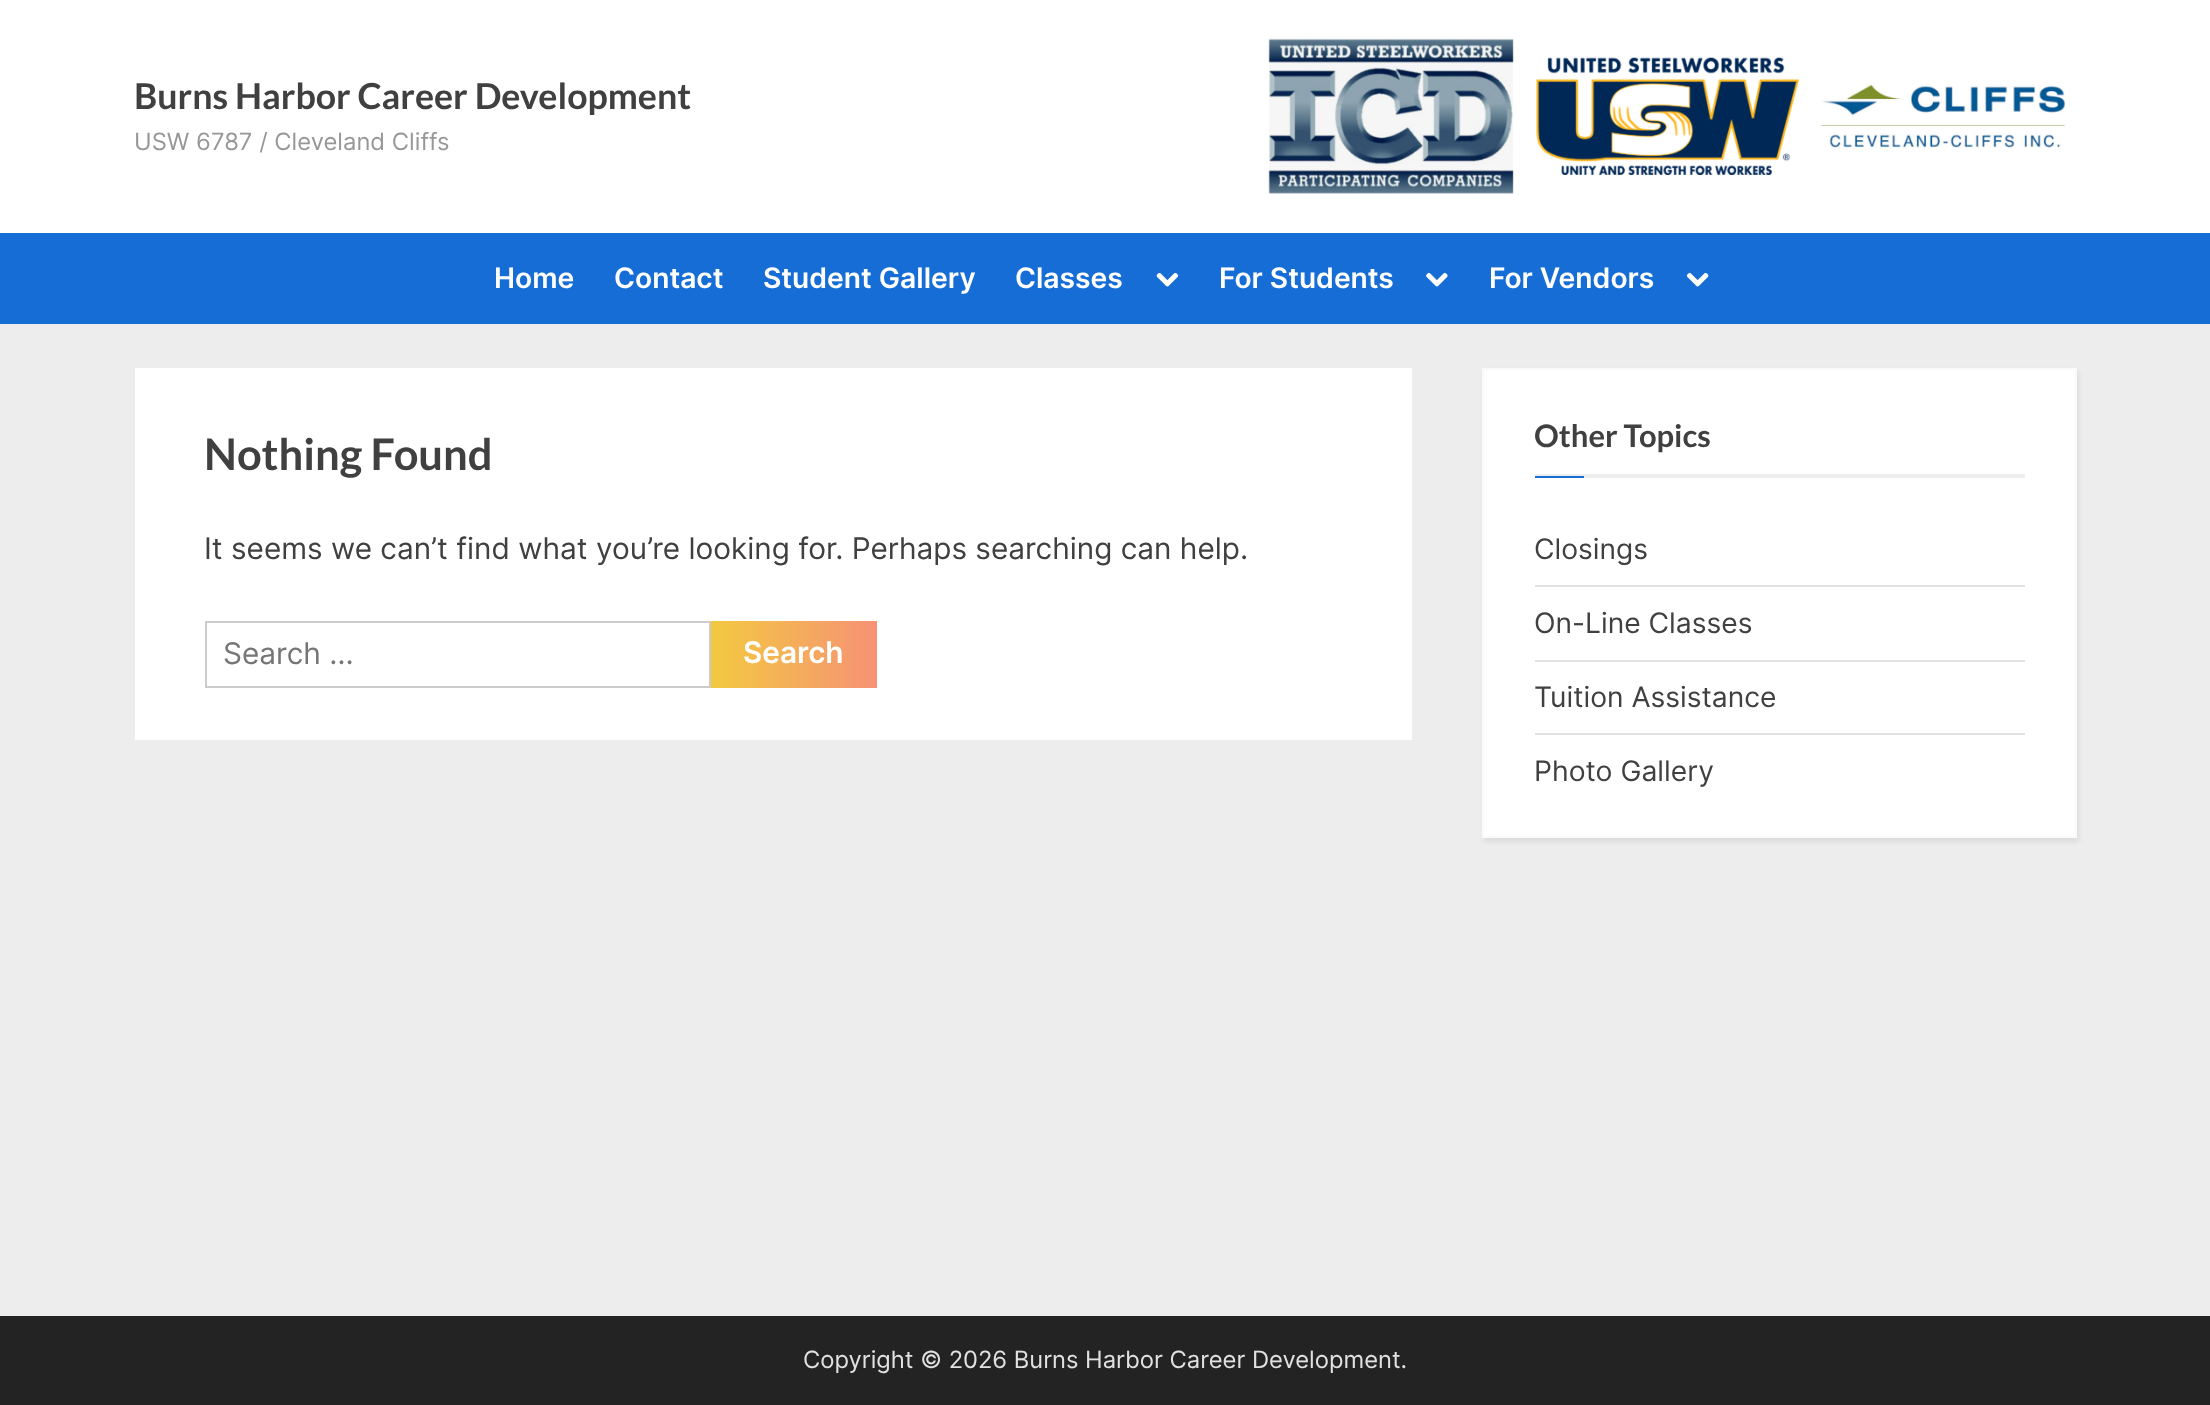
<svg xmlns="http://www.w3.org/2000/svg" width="2210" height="1405">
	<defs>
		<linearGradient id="g1" gradientUnits="userSpaceOnUse" x1="396" y1="655" x2="714" y2="655"><stop offset="0" stop-color="#F3C841" /><stop offset="0.51" stop-color="#F69275" /><stop offset="1" stop-color="#F3C841" /></linearGradient>
		<linearGradient id="g2" gradientUnits="userSpaceOnUse" x1="714" y1="655" x2="1033" y2="655"><stop offset="0" stop-color="#F3C841" /><stop offset="0.51" stop-color="#F69275" /><stop offset="1" stop-color="#F3C841" /></linearGradient>
	</defs>
	<rect width="100%" height="100%" fill="#EDEDED" />
	<rect x="0" y="0" width="2210" height="233" fill="#FFFFFF" />
	<text x="134" y="109" font-family="Lato" font-size="35.75" font-weight="700" fill="#404040">Burns Harbor Career Development</text>
	<text x="134" y="150" font-family="Inter" font-size="23.8" fill="#979797">USW 6787 / Cleveland Cliffs</text>
	<image x="1268" y="38" width="246" height="156" href="assets/img1.png" />
	<image x="1536" y="57" width="263" height="118" href="assets/img2.png" />
	<image x="1820" y="84" width="246" height="65" href="assets/img3.png" />
	<rect x="0" y="233" width="2210" height="91" fill="#166DD6" />
	<g font-family="Inter" font-size="28.25" font-weight="600" fill="#FFFFFF">
		<text x="494" y="288">Home</text>
		<text x="614" y="288">Contact</text>
		<text x="763" y="288">Student Gallery</text>
		<text x="1015" y="288">Classes</text>
	</g>
	<image x="1156" y="272" width="23" height="15" href="assets/img4.png" />
	<text x="1219" y="288" font-family="Inter" font-size="28.25" font-weight="600" fill="#FFFFFF">For Students</text>
	<image x="1426" y="272" width="22" height="15" href="assets/img5.png" />
	<text x="1489" y="288" font-family="Inter" font-size="28.25" font-weight="600" fill="#FFFFFF">For Vendors</text>
	<image x="1686" y="272" width="23" height="15" href="assets/img6.png" />
	<rect x="135" y="368" width="1277" height="372" fill="#FFFFFF" />
	<text x="204" y="470" font-family="Lato" font-size="43.5" font-weight="700" fill="#404040">Nothing Found</text>
	<text x="204" y="559" font-family="Inter" font-size="29.75" fill="#404040">It seems we can’t find what you’re looking for. Perhaps searching can help.</text>
	<rect x="206" y="622" width="504" height="65" fill="none" stroke="#CCCCCC" stroke-width="2" />
	<text x="223" y="664" font-family="Inter" font-size="29.75" fill="#757575">Search …</text>
	<rect x="711" y="621" width="3" height="67" fill="url(#g1)" />
	<rect x="714" y="621" width="163" height="67" fill="url(#g2)" />
	<text x="743" y="663" font-family="Inter" font-size="29.75" font-weight="600" fill="#FFFFFF">Search</text>
	<rect x="1484" y="371" width="595" height="471" fill="#000000" fill-opacity="0.07" filter="blur(2.5px)" />
	<rect x="1483" y="369" width="593" height="468" fill="#FFFFFF" stroke="#FAFAFA" stroke-width="2" />
	<rect x="1535" y="474" width="490" height="4" fill="#EEEEEE" />
	<text x="1534" y="447" font-family="Lato" font-size="31" font-weight="700" fill="#404040">Other Topics</text>
	<rect x="1535" y="476" width="49" height="2" fill="#166DD6" />
	<rect x="1535" y="585" width="490" height="2" fill="#E1E1E1" />
	<text x="1534" y="559" font-family="Inter" font-size="28.25" fill="#404040">Closings</text>
	<rect x="1535" y="660" width="490" height="2" fill="#E1E1E1" />
	<text x="1534" y="633" font-family="Inter" font-size="28.25" fill="#404040">On-Line Classes</text>
	<rect x="1535" y="733" width="490" height="2" fill="#E1E1E1" />
	<g font-family="Inter" font-size="28.25" fill="#404040">
		<text x="1534" y="707">Tuition Assistance</text>
		<text x="1534" y="781">Photo Gallery</text>
	</g>
	<rect x="0" y="1316" width="2210" height="89" fill="#232323" />
	<text x="803" y="1368" font-family="Inter" font-size="23.8" fill="#E1E1E1">Copyright © 2026 Burns Harbor Career Development.</text>
</svg>
